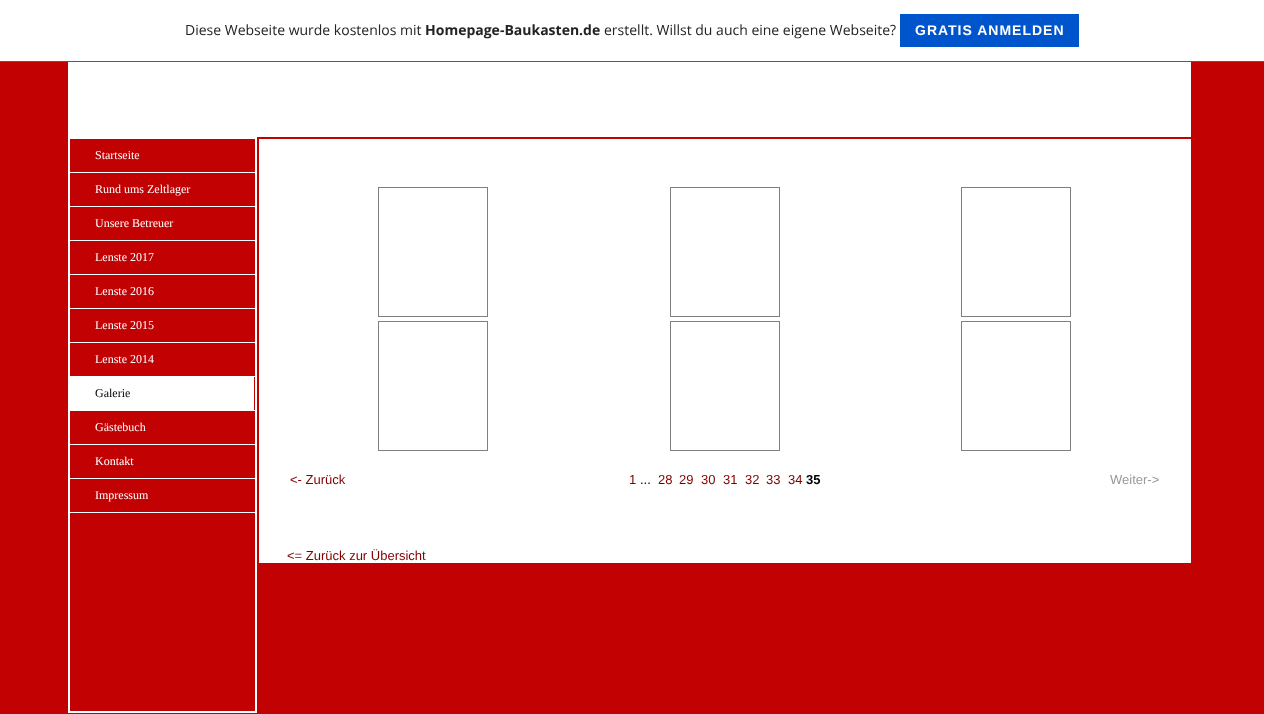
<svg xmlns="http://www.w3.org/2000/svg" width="1264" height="714">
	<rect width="100%" height="100%" fill="#C20102" />
	<rect x="0" y="0" width="1264" height="61" fill="#FFFFFF" />
	<rect x="0" y="61" width="1264" height="1" fill="#5A5A5A" />
	<text x="185" y="35" font-family="Open Sans" font-size="14" fill="#232323">Diese Webseite wurde kostenlos mit</text>
	<text x="425" y="35" font-family="Open Sans" font-size="14" font-weight="700" fill="#232323">Homepage-Baukasten.de</text>
	<text x="604" y="35" font-family="Open Sans" font-size="14" fill="#232323">erstellt. Willst du auch eine eigene Webseite?</text>
	<rect x="900" y="14" width="179" height="33" fill="#0055CC" />
	<text x="915" y="35" font-family="Liberation Sans" font-size="14" font-weight="700" letter-spacing="1" fill="#FFFFFF">GRATIS ANMELDEN</text>
	<rect x="68" y="62" width="1123" height="75" fill="#FFFFFF" />
	<rect x="69" y="138" width="187" height="574" fill="none" stroke="#FFFFFF" stroke-width="2" />
	<rect x="70" y="172" width="185" height="1" fill="#FFFFFF" />
	<text x="95" y="159" font-family="Liberation Serif" font-size="12" fill="#FFFFFF">Startseite</text>
	<rect x="70" y="206" width="185" height="1" fill="#FFFFFF" />
	<text x="95" y="193" font-family="Liberation Serif" font-size="12" fill="#FFFFFF">Rund ums Zeltlager</text>
	<rect x="70" y="240" width="185" height="1" fill="#FFFFFF" />
	<text x="95" y="227" font-family="Liberation Serif" font-size="12" fill="#FFFFFF">Unsere Betreuer</text>
	<rect x="70" y="274" width="185" height="1" fill="#FFFFFF" />
	<text x="95" y="261" font-family="Liberation Serif" font-size="12" fill="#FFFFFF">Lenste 2017</text>
	<rect x="70" y="308" width="185" height="1" fill="#FFFFFF" />
	<text x="95" y="295" font-family="Liberation Serif" font-size="12" fill="#FFFFFF">Lenste 2016</text>
	<rect x="70" y="342" width="185" height="1" fill="#FFFFFF" />
	<text x="95" y="329" font-family="Liberation Serif" font-size="12" fill="#FFFFFF">Lenste 2015</text>
	<rect x="70" y="376" width="185" height="1" fill="#FFFFFF" />
	<text x="95" y="363" font-family="Liberation Serif" font-size="12" fill="#FFFFFF">Lenste 2014</text>
	<rect x="70" y="377" width="184" height="33" fill="#FFFFFF" />
	<rect x="70" y="410" width="185" height="1" fill="#FFFFFF" />
	<text x="95" y="397" font-family="Liberation Serif" font-size="12" fill="#000000">Galerie</text>
	<rect x="70" y="444" width="185" height="1" fill="#FFFFFF" />
	<text x="95" y="431" font-family="Liberation Serif" font-size="12" fill="#FFFFFF">Gästebuch</text>
	<rect x="70" y="478" width="185" height="1" fill="#FFFFFF" />
	<text x="95" y="465" font-family="Liberation Serif" font-size="12" fill="#FFFFFF">Kontakt</text>
	<rect x="70" y="512" width="185" height="1" fill="#FFFFFF" />
	<text x="95" y="499" font-family="Liberation Serif" font-size="12" fill="#FFFFFF">Impressum</text>
	<rect x="259" y="139" width="932" height="424" fill="#FFFFFF" />
	<rect x="378.5" y="187.5" width="109" height="129" fill="none" stroke="#808080" />
	<rect x="670.5" y="187.5" width="109" height="129" fill="none" stroke="#808080" />
	<rect x="961.5" y="187.5" width="109" height="129" fill="none" stroke="#808080" />
	<rect x="378.5" y="321.5" width="109" height="129" fill="none" stroke="#808080" />
	<rect x="670.5" y="321.5" width="109" height="129" fill="none" stroke="#808080" />
	<rect x="961.5" y="321.5" width="109" height="129" fill="none" stroke="#808080" />
	<g font-family="Liberation Sans" font-size="13" fill="#800000">
		<text x="290" y="484">&lt;- Zurück</text>
		<text x="629" y="484">1</text>
	</g>
	<text x="640" y="484" font-family="Liberation Sans" font-size="13" fill="#000000">...</text>
	<g font-family="Liberation Sans" font-size="13" fill="#800000">
		<text x="658" y="484">28</text>
		<text x="679" y="484">29</text>
		<text x="701" y="484">30</text>
		<text x="723" y="484">31</text>
		<text x="745" y="484">32</text>
		<text x="766" y="484">33</text>
		<text x="788" y="484">34</text>
	</g>
	<text x="806" y="484" font-family="Liberation Sans" font-size="13" font-weight="700" fill="#000000">35</text>
	<text x="1110" y="484" font-family="Liberation Sans" font-size="13" fill="#999999">Weiter-&gt;</text>
	<text x="287" y="560" font-family="Liberation Sans" font-size="13" fill="#800000">&lt;= Zurück zur Übersicht</text>
</svg>
